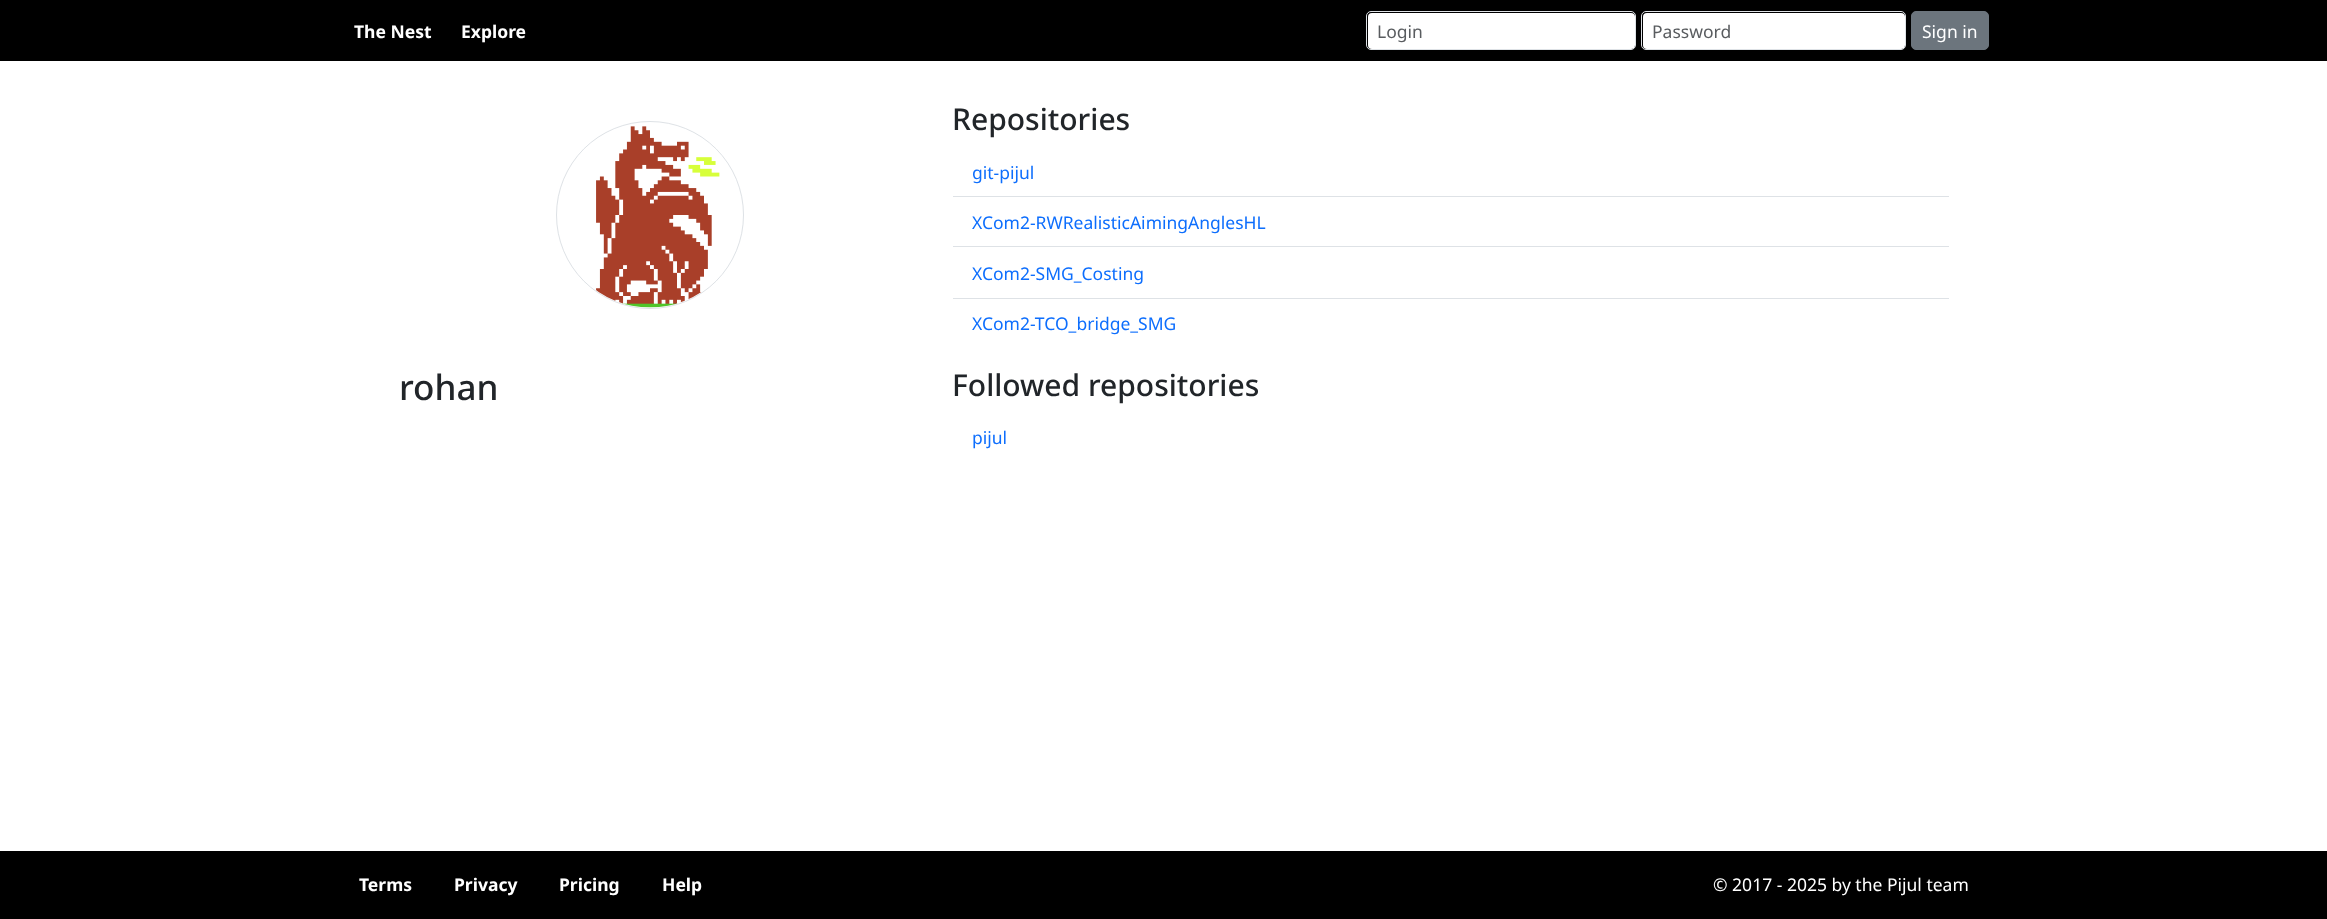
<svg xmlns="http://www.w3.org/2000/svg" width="2327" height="919">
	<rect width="100%" height="100%" fill="#FFFFFF" />
	<rect x="0" y="0" width="2327" height="61" fill="#000000" />
	<g font-family="Noto Sans" font-size="17.5" font-weight="700" fill="#FFFFFF">
		<text x="354" y="38">The Nest</text>
		<text x="461" y="38">Explore</text>
	</g>
	<rect x="1368" y="13" width="267" height="36" rx="4" fill="#FFFFFF" />
	<rect x="1366.5" y="11.5" width="269" height="38" rx="4.5" fill="none" stroke="#DEE2E6" />
	<text x="1377" y="38" font-family="Noto Sans" font-size="17.5" fill="#595C5F">Login</text>
	<rect x="1643" y="13" width="262" height="36" rx="4" fill="#FFFFFF" />
	<rect x="1641.5" y="11.5" width="264" height="38" rx="4.5" fill="none" stroke="#DEE2E6" />
	<text x="1652" y="38" font-family="Noto Sans" font-size="17.5" fill="#595C5F">Password</text>
	<rect x="1911.5" y="11.5" width="77" height="38" rx="4.5" fill="#6C757D" stroke="#6C757D" />
	<text x="1922" y="38" font-family="Noto Sans" font-size="17.5" fill="#FFFFFF">Sign in</text>
	<circle cx="650" cy="215" r="93.5" fill="none" stroke="#DEE2E6" />
	<image x="596" y="126" width="124" height="182" href="assets/img1.png" />
	<text x="399" y="400" font-family="Noto Sans" font-size="35" font-weight="500" fill="#212529">rohan</text>
	<text x="952" y="130" font-family="Noto Sans" font-size="30" font-weight="500" fill="#212529">Repositories</text>
	<rect x="953" y="196" width="996" height="1" fill="#DEE2E6" />
	<text x="972" y="179" font-family="Noto Sans" font-size="17.5" fill="#0D6EFD">git-pijul</text>
	<rect x="953" y="246" width="996" height="1" fill="#DEE2E6" />
	<text x="972" y="229" font-family="Noto Sans" font-size="17.5" fill="#0D6EFD">XCom2-RWRealisticAimingAnglesHL</text>
	<rect x="953" y="298" width="996" height="1" fill="#DEE2E6" />
	<g font-family="Noto Sans" font-size="17.5" fill="#0D6EFD">
		<text x="972" y="280">XCom2-SMG_Costing</text>
		<text x="972" y="330">XCom2-TCO_bridge_SMG</text>
	</g>
	<text x="952" y="396" font-family="Noto Sans" font-size="30" font-weight="500" fill="#212529">Followed repositories</text>
	<text x="972" y="444" font-family="Noto Sans" font-size="17.5" fill="#0D6EFD">pijul</text>
	<rect x="0" y="851" width="2327" height="68" fill="#000000" />
	<g font-family="Noto Sans" font-size="17.5" font-weight="700" fill="#FFFFFF">
		<text x="359" y="891">Terms</text>
		<text x="454" y="891">Privacy</text>
		<text x="559" y="891">Pricing</text>
		<text x="662" y="891">Help</text>
	</g>
	<text x="1713" y="891" font-family="Noto Sans" font-size="17.5" fill="#FFFFFF">© 2017 - 2025 by the Pijul team</text>
</svg>
